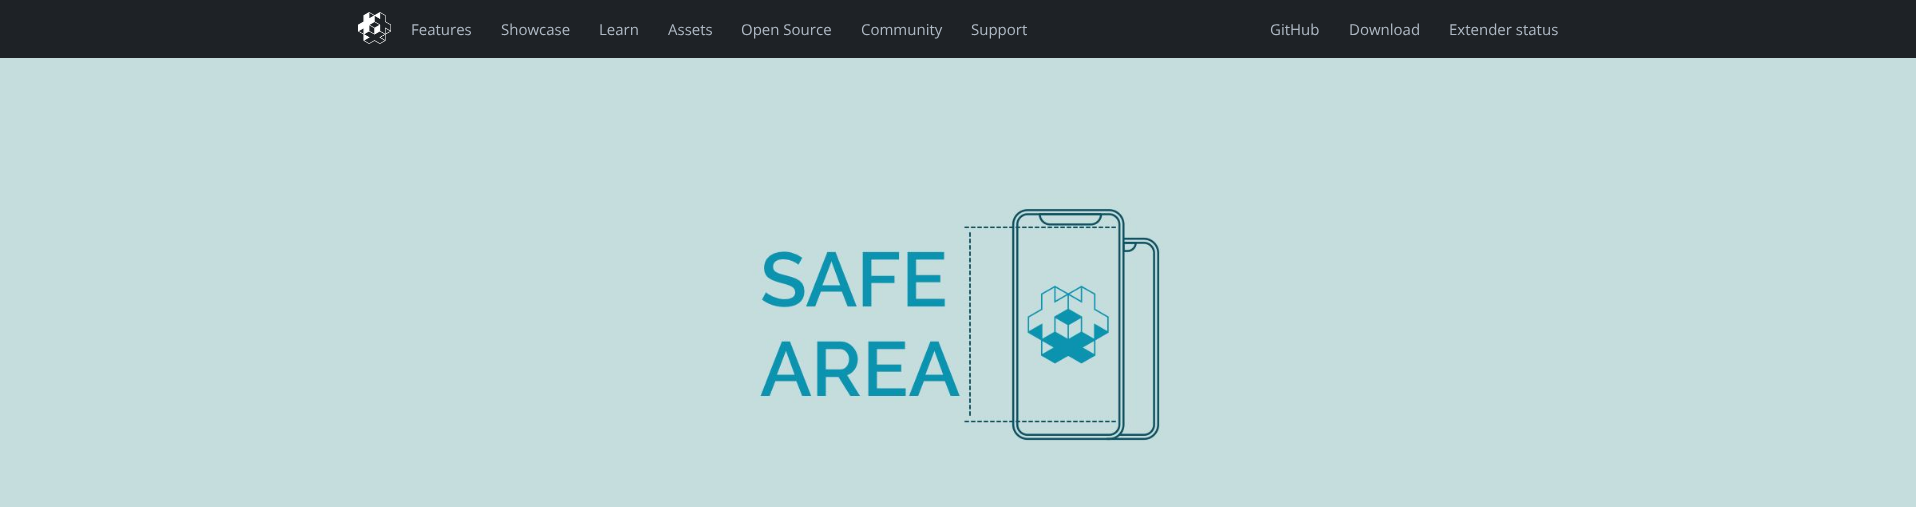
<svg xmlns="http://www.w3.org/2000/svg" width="1916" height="507">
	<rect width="100%" height="100%" fill="#1E2226" />
	<image x="358" y="12" width="33" height="32" href="assets/img1.png" />
	<g font-family="Open Sans" font-size="15" fill="#AFB9C4">
		<text x="411" y="35">Features</text>
		<text x="501" y="35">Showcase</text>
		<text x="599" y="35">Learn</text>
		<text x="668" y="35">Assets</text>
		<text x="741" y="35">Open Source</text>
		<text x="861" y="35">Community</text>
		<text x="971" y="35">Support</text>
		<text x="1270" y="35">GitHub</text>
		<text x="1349" y="35">Download</text>
		<text x="1449" y="35">Extender status</text>
	</g>
	<image x="0" y="58" width="1916" height="449" href="assets/img2.png" />
</svg>
